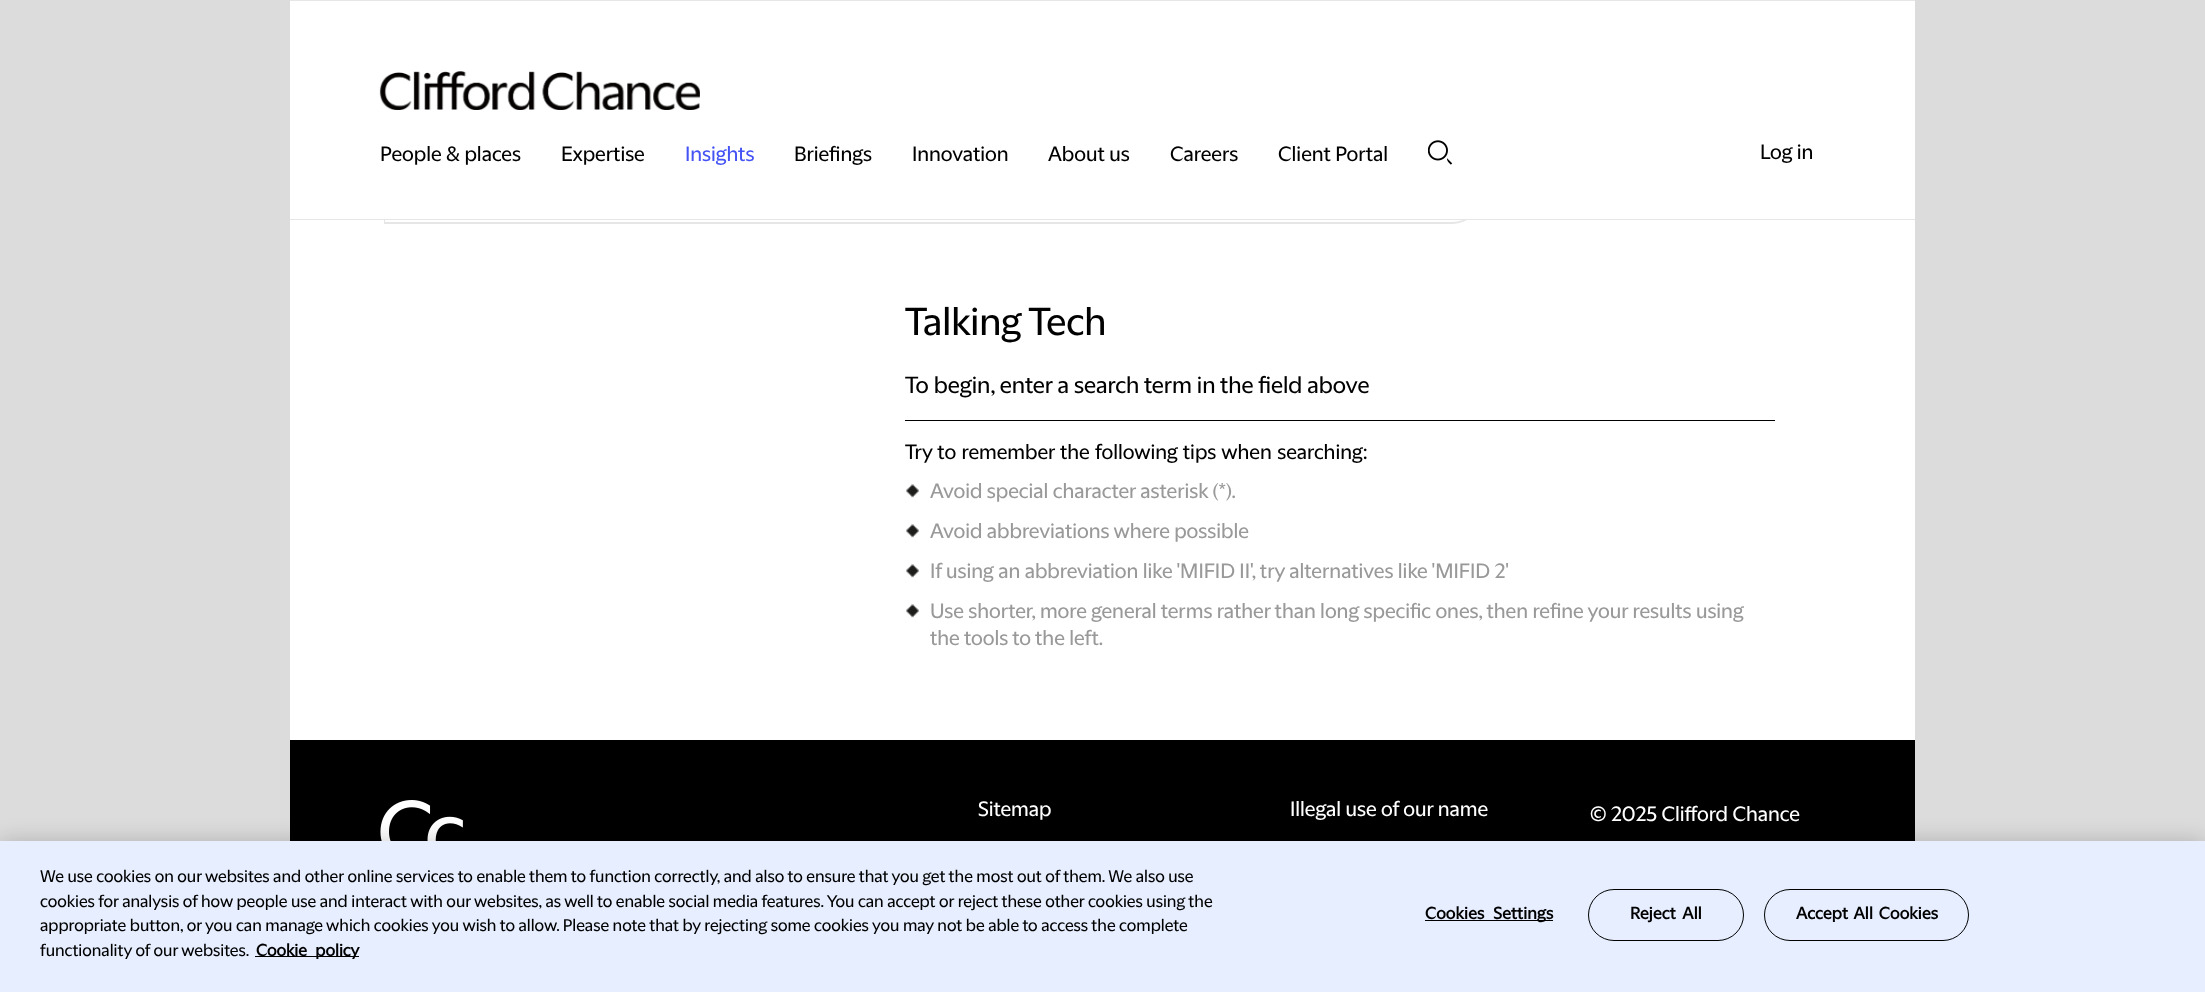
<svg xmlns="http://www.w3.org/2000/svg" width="2205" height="992">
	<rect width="100%" height="100%" fill="#DCDCDC" />
	<rect x="290" y="220" width="1625" height="520" fill="#FFFFFF" />
	<path d="M1422 224H384L385 222H1422Z" fill="#E6E6E6" />
	<path d="M384 224V164L385 165V222Z" fill="#040100" fill-opacity="0.1" />
	<path d="M1422 164H1452C1469 164 1482 177 1482 194C1482 210 1469 224 1452 224H1422ZM1422 165H1452C1468 165 1481 178 1481 194C1481 210 1468 222 1452 222H1422Z" fill="#E6E6E6" fill-rule="evenodd" />
	<rect x="290" y="1" width="1625" height="218" fill="#FFFFFF" />
	<rect x="290" y="0" width="1625" height="1" fill="#E6E6E6" />
	<rect x="290" y="219" width="1625" height="1" fill="#E6E6E6" />
	<image x="379" y="71" width="321" height="39" href="assets/img1.png" />
	<g font-family="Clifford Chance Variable" font-size="20" fill="#000000">
		<text x="380" y="161">People &amp; places</text>
		<text x="561" y="161">Expertise</text>
	</g>
	<text x="685" y="161" font-family="Clifford Chance Variable" font-size="20" fill="#4453F4">Insights</text>
	<g font-family="Clifford Chance Variable" font-size="20" fill="#000000">
		<text x="794" y="161">Briefings</text>
		<text x="912" y="161">Innovation</text>
		<text x="1048" y="161">About us</text>
		<text x="1170" y="161">Careers</text>
		<text x="1278" y="161">Client Portal</text>
	</g>
	<image x="1428" y="140" width="25" height="25" href="assets/img2.png" />
	<text x="1760" y="159" font-family="Clifford Chance Variable" font-size="20" fill="#000000">Log in</text>
	<text x="905" y="335" font-family="Clifford Chance Variable" font-size="37.5" fill="#000000">Talking Tech</text>
	<rect x="905" y="420" width="870" height="1" fill="#000000" />
	<text x="905" y="393" font-family="Clifford Chance Variable" font-size="22.5" fill="#000000">To begin, enter a search term in the field above</text>
	<text x="905" y="459" word-spacing="1" font-family="Clifford Chance Variable" font-size="20" fill="#000000">Try to remember the following tips when searching:</text>
	<image x="906" y="484" width="13" height="14" href="assets/img3.png" />
	<text x="930" y="498" font-family="Clifford Chance Variable" font-size="20" fill="#999999">Avoid special character asterisk (*).</text>
	<image x="906" y="524" width="13" height="14" href="assets/img3.png" />
	<text x="930" y="538" font-family="Clifford Chance Variable" font-size="20" fill="#999999">Avoid abbreviations where possible</text>
	<image x="906" y="564" width="13" height="14" href="assets/img3.png" />
	<text x="930" y="578" font-family="Clifford Chance Variable" font-size="20" fill="#999999">If using an abbreviation like 'MIFID II', try alternatives like 'MIFID 2'</text>
	<image x="906" y="604" width="13" height="14" href="assets/img3.png" />
	<g font-family="Clifford Chance Variable" font-size="20" fill="#999999">
		<text x="930" y="618">Use shorter, more general terms rather than long specific ones, then refine your results using</text>
		<text x="930" y="645">the</text>
		<text x="964" y="645">tools to the left.</text>
	</g>
	<rect x="290" y="740" width="1625" height="101" fill="#000000" />
	<image x="380" y="800" width="83" height="41" href="assets/img4.png" />
	<g font-family="Clifford Chance Variable" font-size="20" fill="#FFFFFF">
		<text x="978" y="816">Sitemap</text>
		<text x="1290" y="816">Illegal use of our name</text>
		<text x="1590" y="821">© 2025 Clifford Chance</text>
	</g>
	<rect x="0" y="841" width="2205" height="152" fill="#000000" fill-opacity="0.2" filter="blur(11px)" />
	<rect x="0" y="841" width="2205" height="151" fill="#E6EEFF" />
	<g font-family="Clifford Chance Variable" font-size="16.25" fill="#000000">
		<text x="40" y="882">We use cookies on our websites and other online services to enable them to function correctly, and also to ensure that you get the most out of them. We also use</text>
		<text x="40" y="907">cookies for analysis of how people use and interact with our websites, as well to enable social media features. You can accept or reject these other cookies using the</text>
		<text x="40" y="931">appropriate button, or you can manage which cookies you wish to allow. Please note that by rejecting some cookies you may not be able to access the complete</text>
		<text x="40" y="956">functionality of our websites.</text>
	</g>
	<rect x="255" y="956" width="104" height="1" fill="#000000" />
	<text x="256" y="956" word-spacing="5" font-family="Clifford Chance Variable" font-size="16.25" font-weight="700" fill="#000000">Cookie policy</text>
	<rect x="1425" y="920" width="128" height="1" fill="#000000" />
	<text x="1425" y="919" word-spacing="5" font-family="Clifford Chance Variable" font-size="16.25" font-weight="700" letter-spacing="0.2" fill="#000000">Cookies Settings</text>
	<rect x="1588.5" y="889.5" width="155" height="51" rx="25.5" fill="none" stroke="#000000" />
	<text x="1630" y="919" word-spacing="3" font-family="Clifford Chance Variable" font-size="16.25" font-weight="700" letter-spacing="0.2" fill="#000000">Reject All</text>
	<rect x="1764.5" y="889.5" width="204" height="51" rx="25.5" fill="none" stroke="#000000" />
	<text x="1796" y="919" word-spacing="2" font-family="Clifford Chance Variable" font-size="16.25" font-weight="700" letter-spacing="0.2" fill="#000000">Accept All Cookies</text>
</svg>
